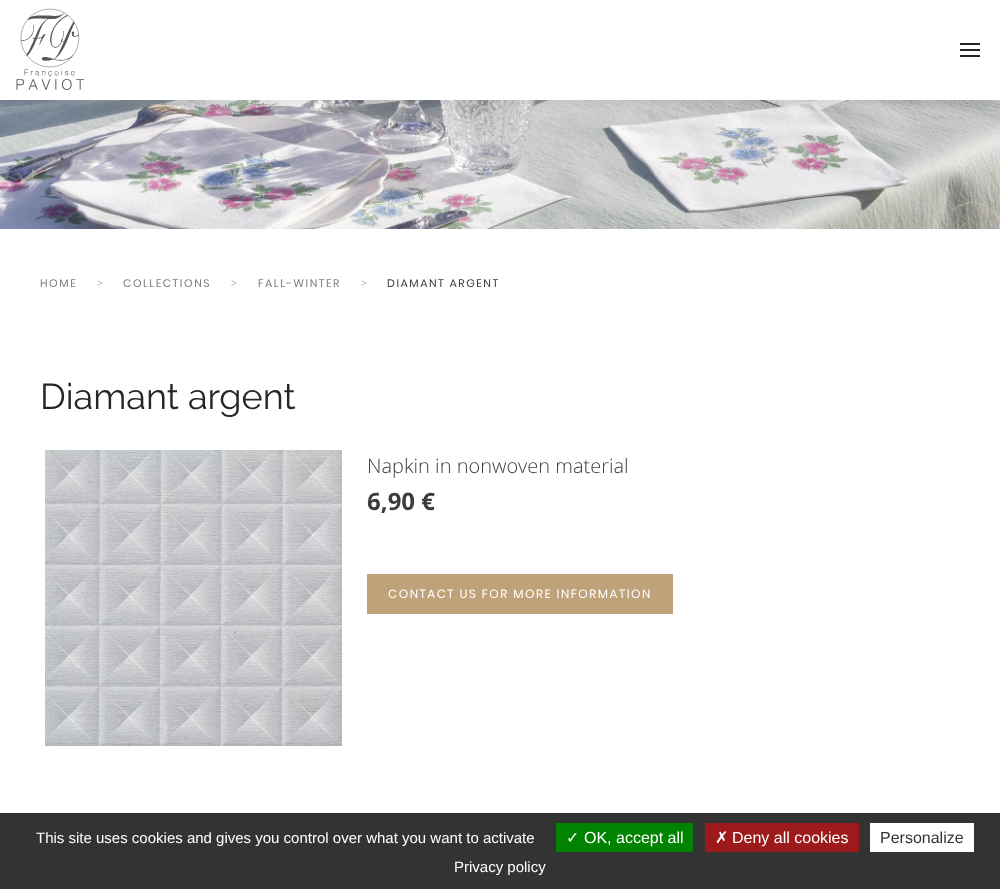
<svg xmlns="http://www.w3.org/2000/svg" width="1000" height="889">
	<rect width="100%" height="100%" fill="#FFFFFF" />
	<image x="0" y="100" width="1000" height="129" href="assets/img2.png" />
	<rect x="0" y="2" width="1000" height="100" fill="#000000" fill-opacity="0.09" filter="blur(5.5px)" />
	<rect x="0" y="0" width="1000" height="100" fill="#FFFFFF" />
	<image x="16" y="8" width="69" height="82" href="assets/img1.png" />
	<rect x="960" y="43" width="20" height="2" fill="#262626" />
	<rect x="960" y="49" width="20" height="2" fill="#262626" />
	<rect x="960" y="55" width="20" height="2" fill="#262626" />
	<text x="40" y="287" font-family="Poppins" font-size="11" letter-spacing="1.5" fill="#7E7E7E">HOME</text>
	<text x="97" y="287" font-family="Open Sans" font-size="11" font-weight="300" fill="#7E7E7E">&gt;</text>
	<text x="123" y="287" font-family="Poppins" font-size="11" letter-spacing="1.5" fill="#7E7E7E">COLLECTIONS</text>
	<text x="231" y="287" font-family="Open Sans" font-size="11" font-weight="300" fill="#7E7E7E">&gt;</text>
	<text x="258" y="287" font-family="Poppins" font-size="11" letter-spacing="1.5" fill="#7E7E7E">FALL-WINTER</text>
	<text x="361" y="287" font-family="Open Sans" font-size="11" font-weight="300" fill="#7E7E7E">&gt;</text>
	<text x="387" y="287" font-family="Poppins" font-size="11" letter-spacing="1.5" fill="#3C3C3C">DIAMANT ARGENT</text>
	<text x="40" y="409" font-family="Raleway" font-size="36" fill="#262626">Diamant argent</text>
	<image x="45" y="450" width="297" height="296" href="assets/img3.png" />
	<text x="367" y="473" font-family="Open Sans" font-size="20" font-weight="300" fill="#3C3C3C">Napkin in nonwoven material</text>
	<text x="367" y="510" font-family="Open Sans" font-size="24" font-weight="700" fill="#3C3C3C">6,90 €</text>
	<rect x="367" y="574" width="306" height="40" fill="#BFA279" />
	<text x="388" y="598" font-family="Poppins" font-size="12" letter-spacing="1.5" fill="#FFFFFF">CONTACT US FOR MORE INFORMATION</text>
	<rect x="0" y="813" width="1000" height="76" fill="#333333" />
	<text x="36" y="843" font-family="Liberation Sans" font-size="15" fill="#FFFFFF">This site uses cookies and gives you control over what you want to activate</text>
	<rect x="556" y="823" width="137" height="29" fill="#008300" />
	<text x="566" y="843" font-family="DejaVu Sans" font-size="16" fill="#FFFFFF">✓</text>
	<text x="584" y="843" font-family="Liberation Sans" font-size="16" fill="#FFFFFF">OK, accept all</text>
	<rect x="705" y="823" width="154" height="29" fill="#9C1A1A" />
	<text x="715" y="843" font-family="DejaVu Sans" font-size="16" fill="#FFFFFF">✗</text>
	<text x="732" y="843" font-family="Liberation Sans" font-size="16" fill="#FFFFFF">Deny all cookies</text>
	<rect x="870" y="823" width="104" height="29" fill="#FFFFFF" />
	<text x="880" y="843" font-family="Liberation Sans" font-size="16" fill="#333333">Personalize</text>
	<text x="454" y="872" font-family="Liberation Sans" font-size="15" fill="#FFFFFF">Privacy policy</text>
</svg>
